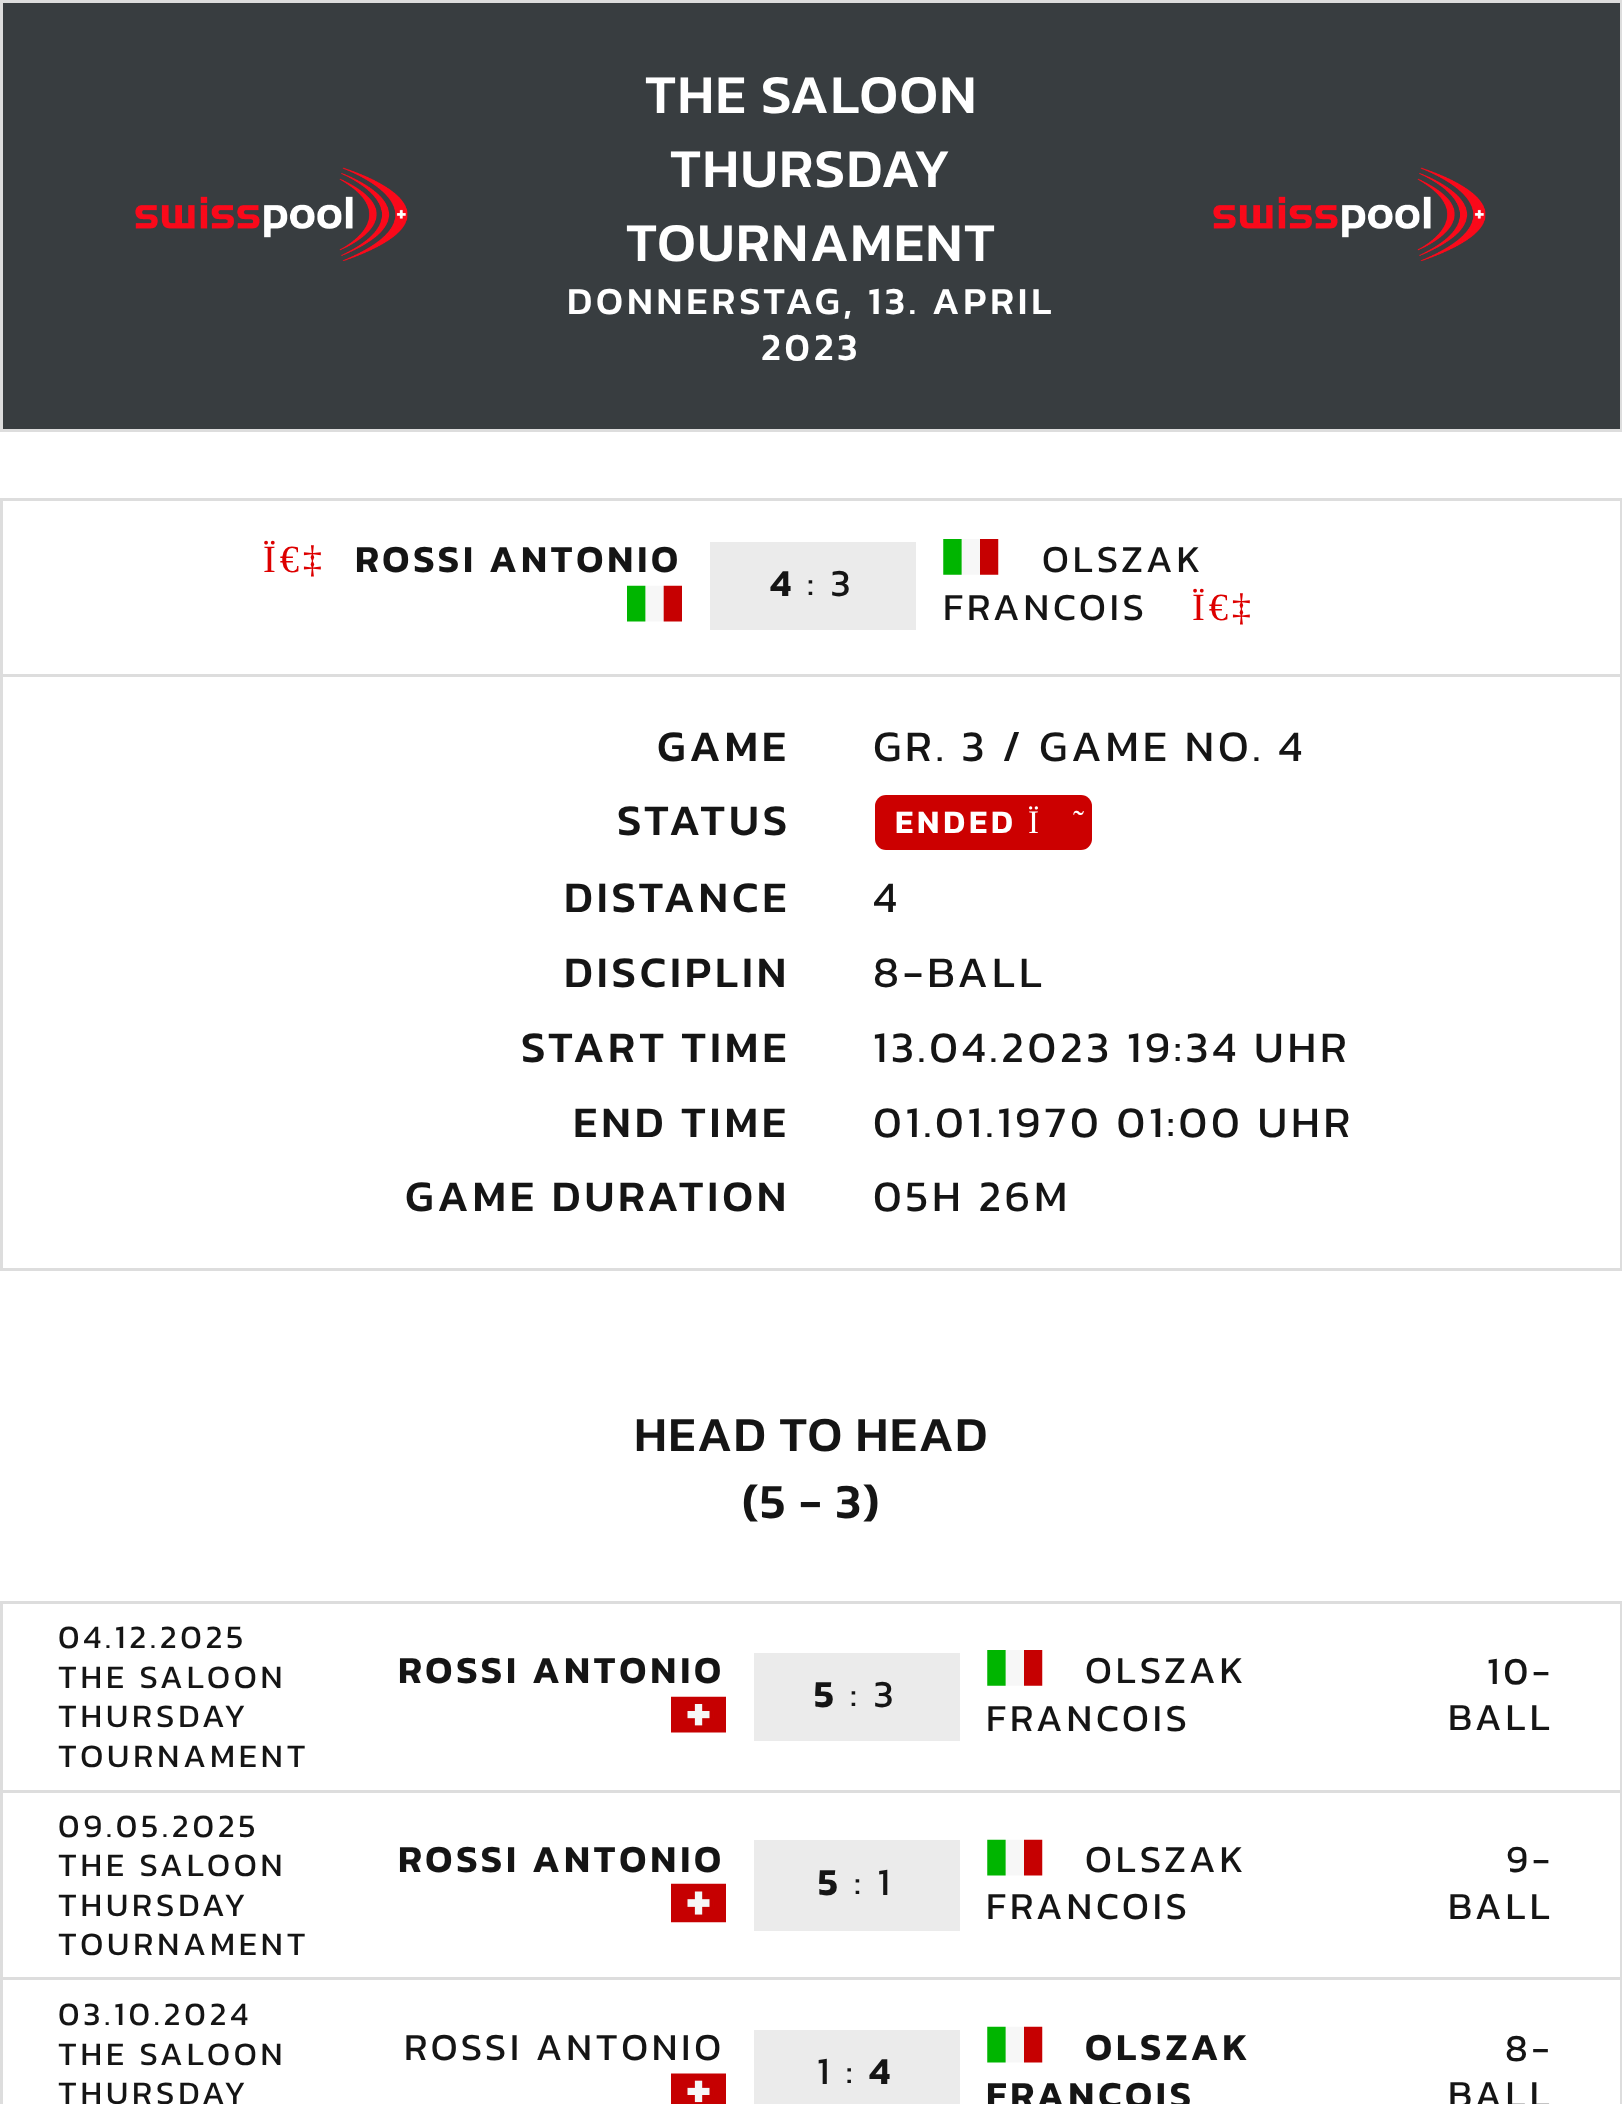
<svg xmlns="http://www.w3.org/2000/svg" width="1622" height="2104">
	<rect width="100%" height="100%" fill="#FFFFFF" />
	<rect x="0" y="0" width="1622" height="3" fill="#DDDDDD" />
	<rect x="1620" y="0" width="2" height="432" fill="#DDDDDD" />
	<rect x="0" y="429" width="1622" height="3" fill="#DDDDDD" />
	<rect x="0" y="0" width="3" height="432" fill="#DDDDDD" />
	<rect x="3" y="3" width="1617" height="426" fill="#383D40" />
	<image x="135" y="167" width="273" height="94" href="assets/img1.png" />
	<g font-family="Kanit" font-size="55" font-weight="500" letter-spacing="1.4" fill="#FFFFFF">
		<text x="645" y="113">THE SALOON</text>
		<text x="670" y="187">THURSDAY</text>
		<text x="626" y="261">TOURNAMENT</text>
	</g>
	<g font-family="Kanit" font-size="38.5" font-weight="500" letter-spacing="3.85" fill="#FFFFFF">
		<text x="567" y="314">DONNERSTAG, 13. APRIL</text>
		<text x="761" y="360">2023</text>
	</g>
	<image x="1213" y="167" width="273" height="94" href="assets/img2.png" />
	<rect x="0" y="498" width="1622" height="3" fill="#DDDDDD" />
	<rect x="1620" y="498" width="2" height="773" fill="#DDDDDD" />
	<rect x="0" y="1268" width="1622" height="3" fill="#DDDDDD" />
	<rect x="0" y="498" width="3" height="773" fill="#DDDDDD" />
	<text x="263" y="572" font-family="Liberation Serif" font-size="38.5" letter-spacing="3.85" fill="#DD0000">Ï€‡</text>
	<text x="355" y="572" font-family="Kanit" font-size="38.5" font-weight="600" letter-spacing="3.85" fill="#151515">ROSSI ANTONIO</text>
	<image x="627" y="585" width="55" height="37" href="assets/img3.png" />
	<rect x="710" y="542" width="206" height="88" fill="#EBEBEB" />
	<text x="770" y="596" font-family="Kanit" font-size="38.5" font-weight="600" letter-spacing="3.85" fill="#151515">4</text>
	<text x="807" y="596" font-family="Kanit" font-size="38.5" letter-spacing="3.85" fill="#151515">: 3</text>
	<image x="943" y="539" width="56" height="36" href="assets/img4.png" />
	<g font-family="Kanit" font-size="38.5" letter-spacing="3.85" fill="#151515">
		<text x="1042" y="572">OLSZAK</text>
		<text x="943" y="620">FRANCOIS</text>
	</g>
	<text x="1192" y="620" font-family="Liberation Serif" font-size="38.5" letter-spacing="3.85" fill="#DD0000">Ï€‡</text>
	<rect x="0" y="674" width="1622" height="3" fill="#DDDDDD" />
	<text x="657" y="761" font-family="Kanit" font-size="44" font-weight="500" letter-spacing="3.85" fill="#151515">GAME</text>
	<text x="873" y="761" font-family="Kanit" font-size="44" letter-spacing="3.85" fill="#151515">GR. 3 / GAME NO. 4</text>
	<text x="617" y="835" font-family="Kanit" font-size="44" font-weight="500" letter-spacing="3.85" fill="#151515">STATUS</text>
	<rect x="875" y="795" width="217" height="55" rx="11" fill="#CC0000" />
	<text x="895" y="833" font-family="Kanit" font-size="33" font-weight="600" letter-spacing="3.85" fill="#FFFFFF">ENDED</text>
	<g font-family="Liberation Serif" font-size="33" letter-spacing="3.85" fill="#FFFFFF">
		<text x="1028" y="833">Ï</text>
		<text x="1073" y="833">˜</text>
	</g>
	<text x="564" y="912" font-family="Kanit" font-size="44" font-weight="500" letter-spacing="3.85" fill="#151515">DISTANCE</text>
	<text x="873" y="912" font-family="Kanit" font-size="44" letter-spacing="3.85" fill="#151515">4</text>
	<text x="564" y="987" font-family="Kanit" font-size="44" font-weight="500" letter-spacing="3.85" fill="#151515">DISCIPLIN</text>
	<text x="873" y="987" font-family="Kanit" font-size="44" letter-spacing="3.85" fill="#151515">8-BALL</text>
	<text x="521" y="1062" font-family="Kanit" font-size="44" font-weight="500" letter-spacing="3.85" fill="#151515">START TIME</text>
	<text x="873" y="1062" font-family="Kanit" font-size="44" letter-spacing="3.85" fill="#151515">13.04.2023 19:34 UHR</text>
	<text x="573" y="1137" font-family="Kanit" font-size="44" font-weight="500" letter-spacing="3.85" fill="#151515">END TIME</text>
	<text x="873" y="1137" font-family="Kanit" font-size="44" letter-spacing="3.85" fill="#151515">01.01.1970 01:00 UHR</text>
	<text x="405" y="1211" font-family="Kanit" font-size="44" font-weight="500" letter-spacing="3.85" fill="#151515">GAME DURATION</text>
	<text x="873" y="1211" font-family="Kanit" font-size="44" letter-spacing="3.85" fill="#151515">05H 26M</text>
	<g font-family="Kanit" font-size="49.5" font-weight="500" letter-spacing="1.25" fill="#151515">
		<text x="634" y="1451">HEAD TO HEAD</text>
		<text x="742" y="1518">(5 - 3)</text>
	</g>
	<rect x="0" y="1601" width="1622" height="3" fill="#DDDDDD" />
	<rect x="1620" y="1601" width="2" height="503" fill="#DDDDDD" />
	<rect x="0" y="1601" width="3" height="503" fill="#DDDDDD" />
	<g font-family="Kanit" font-size="33" letter-spacing="3.85" fill="#151515">
		<text x="58" y="1648">04.12.2025</text>
		<text x="58" y="1688">THE SALOON</text>
		<text x="58" y="1727">THURSDAY</text>
		<text x="58" y="1767">TOURNAMENT</text>
	</g>
	<text x="398" y="1683" font-family="Kanit" font-size="38.5" font-weight="600" letter-spacing="3.85" fill="#151515">ROSSI ANTONIO</text>
	<image x="671" y="1696" width="55" height="37" href="assets/img5.png" />
	<rect x="754" y="1653" width="206" height="88" fill="#EBEBEB" />
	<text x="814" y="1707" font-family="Kanit" font-size="38.5" font-weight="600" letter-spacing="3.85" fill="#151515">5</text>
	<text x="850" y="1707" font-family="Kanit" font-size="38.5" letter-spacing="3.85" fill="#151515">: 3</text>
	<image x="987" y="1650" width="56" height="36" href="assets/img4.png" />
	<g font-family="Kanit" font-size="38.5" letter-spacing="3.85" fill="#151515">
		<text x="1085" y="1683">OLSZAK</text>
		<text x="986" y="1731">FRANCOIS</text>
		<text x="1487" y="1684">10-</text>
		<text x="1448" y="1730">BALL</text>
	</g>
	<rect x="0" y="1790" width="1622" height="3" fill="#DDDDDD" />
	<g font-family="Kanit" font-size="33" letter-spacing="3.85" fill="#151515">
		<text x="58" y="1837">09.05.2025</text>
		<text x="58" y="1876">THE SALOON</text>
		<text x="58" y="1916">THURSDAY</text>
		<text x="58" y="1955">TOURNAMENT</text>
	</g>
	<text x="398" y="1872" font-family="Kanit" font-size="38.5" font-weight="600" letter-spacing="3.85" fill="#151515">ROSSI ANTONIO</text>
	<image x="671" y="1883" width="55" height="40" href="assets/img6.png" />
	<rect x="754" y="1840" width="206" height="91" fill="#EBEBEB" />
	<text x="818" y="1895" font-family="Kanit" font-size="38.5" font-weight="600" letter-spacing="3.85" fill="#151515">5</text>
	<text x="854" y="1895" font-family="Kanit" font-size="38.5" letter-spacing="3.85" fill="#151515">: 1</text>
	<image x="987" y="1839" width="56" height="37" href="assets/img7.png" />
	<g font-family="Kanit" font-size="38.5" letter-spacing="3.85" fill="#151515">
		<text x="1085" y="1872">OLSZAK</text>
		<text x="986" y="1919">FRANCOIS</text>
		<text x="1506" y="1872">9-</text>
		<text x="1448" y="1919">BALL</text>
	</g>
	<rect x="0" y="1977" width="1622" height="3" fill="#DDDDDD" />
	<g font-family="Kanit" font-size="33" letter-spacing="3.85" fill="#151515">
		<text x="58" y="2025">03.10.2024</text>
		<text x="58" y="2065">THE SALOON</text>
		<text x="58" y="2104">THURSDAY</text>
	</g>
	<text x="404" y="2060" font-family="Kanit" font-size="38.5" letter-spacing="3.85" fill="#151515">ROSSI ANTONIO</text>
	<image x="671" y="2073" width="55" height="31" href="assets/img8.png" />
	<rect x="754" y="2030" width="206" height="74" fill="#EBEBEB" />
	<text x="817" y="2084" font-family="Kanit" font-size="38.5" letter-spacing="3.85" fill="#151515">1 :</text>
	<text x="869" y="2084" font-family="Kanit" font-size="38.5" font-weight="600" letter-spacing="3.85" fill="#151515">4</text>
	<image x="987" y="2026" width="56" height="37" href="assets/img7.png" />
	<g font-family="Kanit" font-size="38.5" font-weight="600" letter-spacing="3.85" fill="#151515">
		<text x="1085" y="2060">OLSZAK</text>
		<text x="986" y="2108">FRANCOIS</text>
	</g>
	<g font-family="Kanit" font-size="38.5" letter-spacing="3.85" fill="#151515">
		<text x="1505" y="2061">8-</text>
		<text x="1448" y="2107">BALL</text>
	</g>
</svg>
